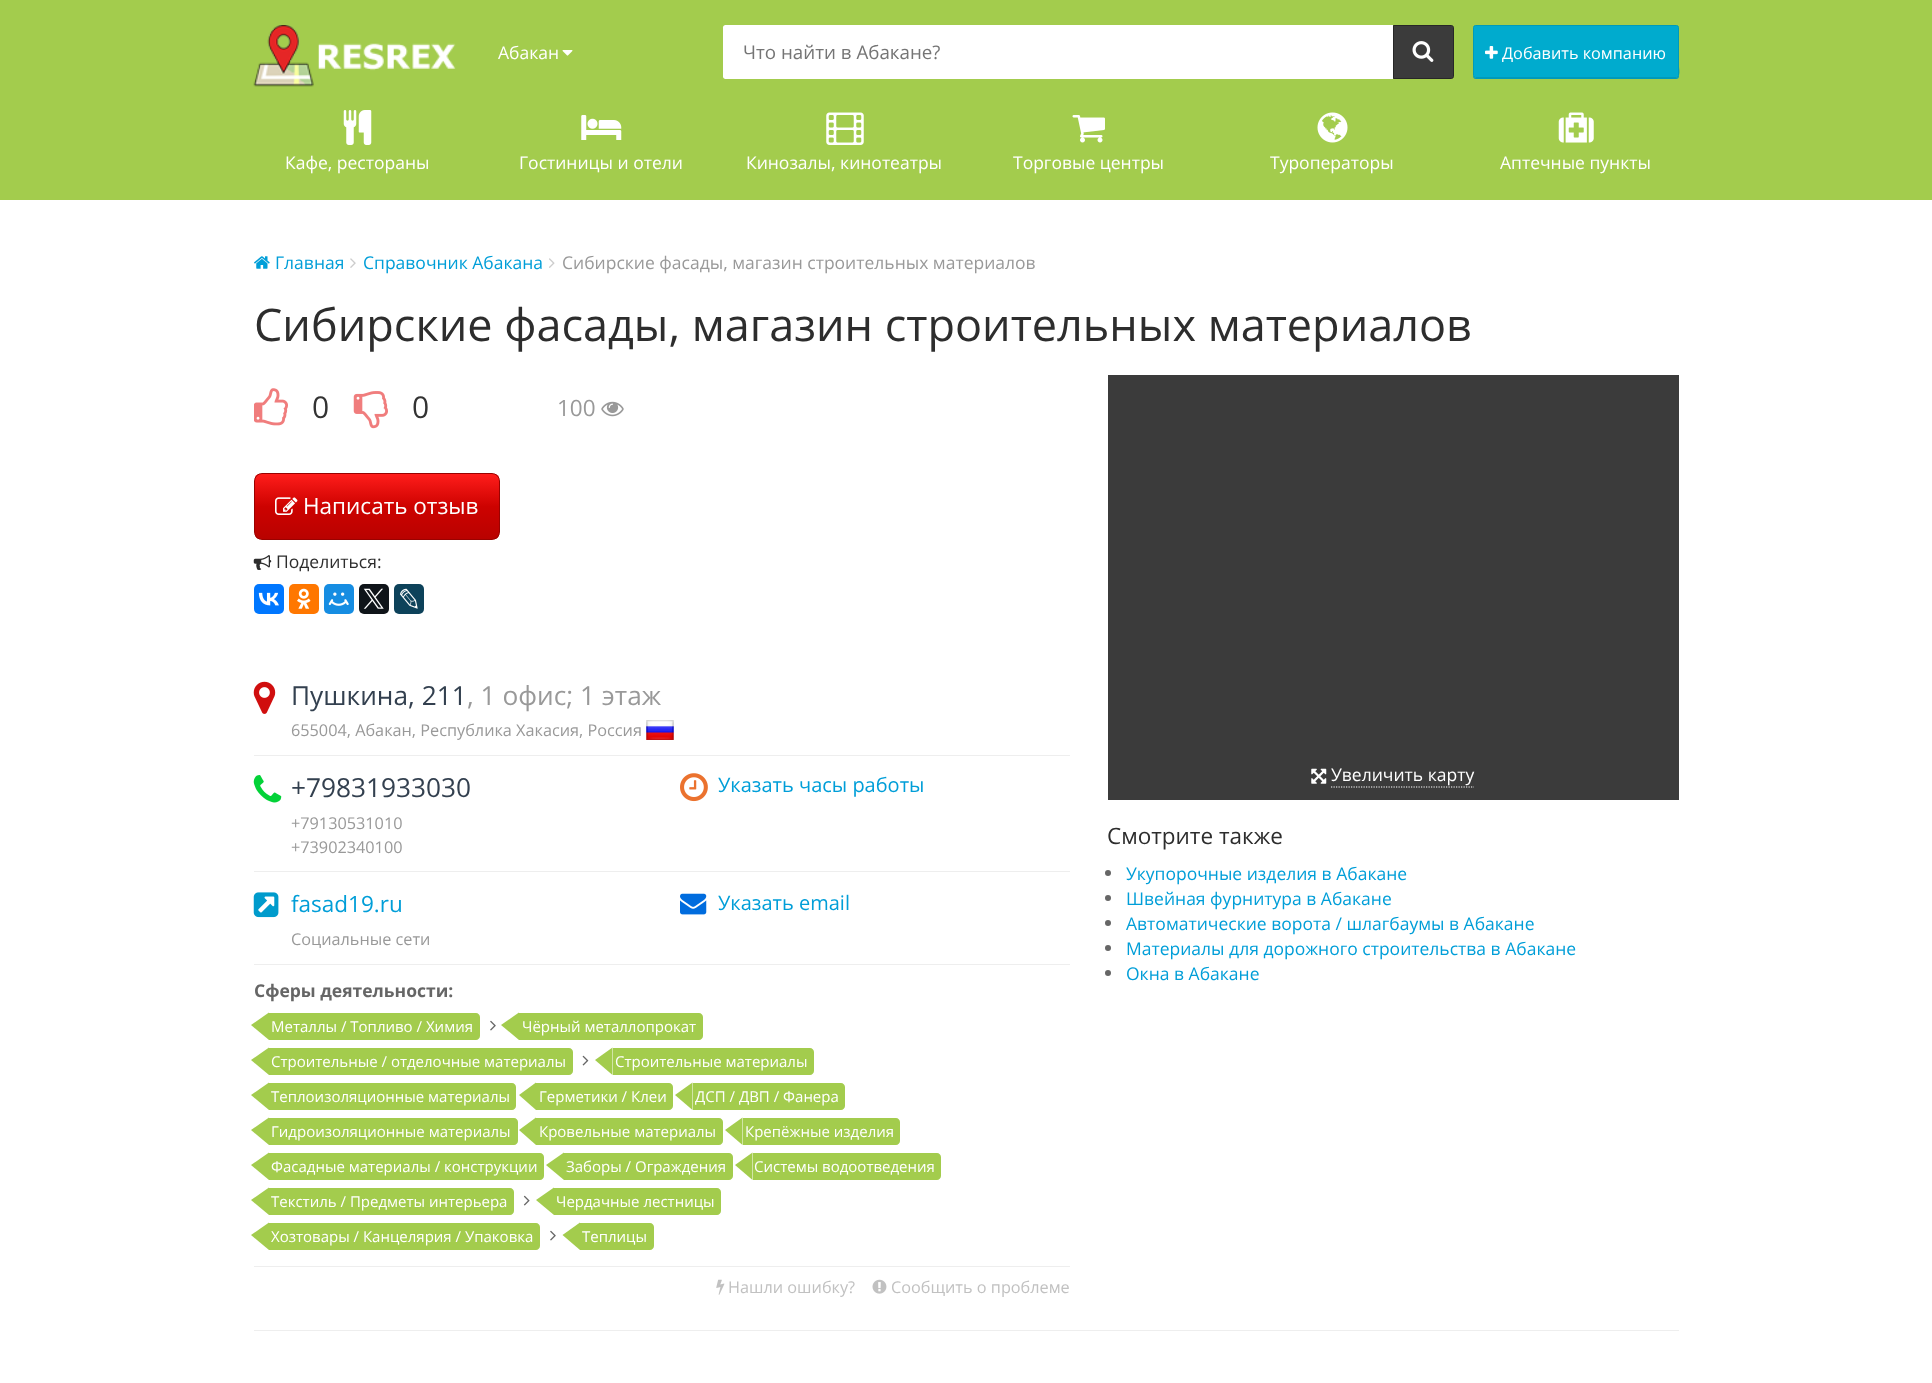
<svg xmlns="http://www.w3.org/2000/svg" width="1932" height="1383">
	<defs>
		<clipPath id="clip1"><rect x="254" y="473" width="246" height="67" rx="8" /></clipPath>
		<linearGradient id="g1" gradientUnits="userSpaceOnUse" x1="377" y1="474" x2="377" y2="539"><stop offset="0" stop-color="#FF1D1B" /><stop offset="0.5" stop-color="#CD0200" /><stop offset="1" stop-color="#B90200" /></linearGradient>
	</defs>
	<rect width="100%" height="100%" fill="#FFFFFF" />
	<rect x="0" y="0" width="1932" height="200" fill="#A3CC4D" />
	<image x="253" y="25" width="203" height="62" href="assets/img1.png" />
	<text x="498" y="59" font-family="Open Sans" font-size="17.5" fill="#FFFFFF">Абакан</text>
	<image x="562" y="50" width="11" height="6" href="assets/img2.png" />
	<path d="M725.5 25H1393V79H725.5C724 79 723 78 723 76.5V27.5C723 26 724 25 725.5 25Z" fill="#FFFFFF" />
	<text x="743" y="59" font-family="Open Sans" font-size="18.75" fill="#757575">Что найти в Абакане?</text>
	<path d="M1393.5 25.5H1451.5C1452.5 25.5 1453.5 26.5 1453.5 27.5V76.5C1453.5 77.5 1452.5 78.5 1451.5 78.5H1393.5Z" fill="#3B3B3B" stroke="#272727" />
	<image x="1412" y="41" width="22" height="21" href="assets/img3.png" />
	<path d="M1473 76C1473 78 1474 79 1476 79H1676C1678 79 1679 78 1679 76V27V67C1679 68 1681 77 1676 78H1475Z" fill="#009ABA" />
	<rect x="1473.5" y="25.5" width="205" height="52" rx="2" fill="#00ABCE" stroke="#009ABA" />
	<image x="1485" y="46" width="13" height="13" href="assets/img4.png" />
	<text x="1502" y="59" font-family="Open Sans" font-size="16.25" fill="#FFFFFF">Добавить компанию</text>
	<image x="343" y="110" width="29" height="35" href="assets/img5.png" />
	<text x="285" y="169" font-family="Open Sans" font-size="17.5" fill="#FFFFFF">Кафе, рестораны</text>
	<image x="581" y="115" width="41" height="25" href="assets/img6.png" />
	<text x="519" y="169" font-family="Open Sans" font-size="17.5" fill="#FFFFFF">Гостиницы и отели</text>
	<image x="826" y="112" width="38" height="33" href="assets/img7.png" />
	<text x="746" y="169" font-family="Open Sans" font-size="17.5" fill="#FFFFFF">Кинозалы, кинотеатры</text>
	<image x="1072" y="115" width="33" height="28" href="assets/img8.png" />
	<text x="1013" y="169" font-family="Open Sans" font-size="17.5" fill="#FFFFFF">Торговые центры</text>
	<image x="1317" y="112" width="31" height="31" href="assets/img9.png" />
	<text x="1270" y="169" font-family="Open Sans" font-size="17.5" fill="#FFFFFF">Туроператоры</text>
	<image x="1558" y="112" width="36" height="31" href="assets/img10.png" />
	<text x="1500" y="169" font-family="Open Sans" font-size="17.5" fill="#FFFFFF">Аптечные пункты</text>
	<image x="254" y="256" width="16" height="13" href="assets/img11.png" />
	<text x="275" y="269" font-family="Open Sans" font-size="17.5" fill="#009ED8">Главная</text>
	<image x="350" y="258" width="6" height="10" href="assets/img12.png" />
	<text x="363" y="269" font-family="Open Sans" font-size="17.5" fill="#009ED8">Справочник Абакана</text>
	<image x="549" y="258" width="6" height="10" href="assets/img13.png" />
	<text x="562" y="269" font-family="Open Sans" font-size="17.5" fill="#999999">Сибирские фасады, магазин строительных материалов</text>
	<text x="254" y="341" font-family="Open Sans" font-size="45" fill="#2D2D2D">Сибирские фасады, магазин строительных материалов</text>
	<image x="254" y="388" width="34" height="38" href="assets/img14.png" />
	<text x="312" y="418" font-family="Open Sans" font-size="30" fill="#333333">0</text>
	<image x="353" y="391" width="35" height="38" href="assets/img15.png" />
	<text x="412" y="418" font-family="Open Sans" font-size="30" fill="#333333">0</text>
	<text x="557" y="416" font-family="Open Sans" font-size="22.5" fill="#999999">100</text>
	<image x="601" y="401" width="23" height="16" href="assets/img16.png" />
	<g clip-path="url(#clip1)">
		<rect x="255" y="474" width="244" height="65" fill="url(#g1)" />
	</g>
	<rect x="254.5" y="473.5" width="245" height="66" rx="7.5" fill="none" stroke="#9A0200" />
	<image x="275" y="497" width="23" height="18" href="assets/img17.png" />
	<text x="303" y="514" font-family="Open Sans" font-size="22.5" fill="#FFFFFF">Написать отзыв</text>
	<image x="253" y="555" width="19" height="15" href="assets/img18.png" />
	<text x="276" y="568" font-family="Open Sans" font-size="17.5" fill="#2D2D2D">Поделиться:</text>
	<rect x="254" y="584" width="30" height="30" rx="5" fill="#0077FF" />
	<image x="258" y="592" width="21" height="14" href="assets/img19.png" />
	<rect x="289" y="584" width="30" height="30" rx="5" fill="#FF7700" />
	<image x="297" y="588" width="14" height="21" href="assets/img20.png" />
	<rect x="324" y="584" width="30" height="30" rx="5" fill="#168DE2" />
	<image x="328" y="592" width="21" height="14" href="assets/img21.png" />
	<rect x="359" y="584" width="30" height="30" rx="5" fill="#0F1419" />
	<image x="363" y="588" width="21" height="21" href="assets/img22.png" />
	<rect x="394" y="584" width="30" height="30" rx="5" fill="#0D425A" />
	<image x="400" y="588" width="18" height="21" href="assets/img23.png" />
	<rect x="254" y="755" width="816" height="1" fill="#EEEEEE" />
	<image x="253" y="681" width="23" height="33" href="assets/img24.png" />
	<text x="291" y="705" font-family="Open Sans" font-size="26.25" fill="#33404F">Пушкина, 211</text>
	<text x="467" y="705" font-family="Open Sans" font-size="26.25" fill="#999999">, 1 офис; 1 этаж</text>
	<text x="291" y="736" font-family="Open Sans" font-size="16.25" fill="#999999">655004, Абакан, Республика Хакасия, Россия</text>
	<image x="646" y="720" width="28" height="20" href="assets/img25.png" />
	<rect x="254" y="871" width="816" height="1" fill="#EEEEEE" />
	<image x="253" y="775" width="29" height="28" href="assets/img26.png" />
	<text x="291" y="797" font-family="Open Sans" font-size="26.25" fill="#33404F">+79831933030</text>
	<g font-family="Open Sans" font-size="16.25" fill="#999999">
		<text x="291" y="829">+79130531010</text>
		<text x="291" y="853">+73902340100</text>
	</g>
	<image x="680" y="773" width="28" height="29" href="assets/img27.png" />
	<text x="718" y="792" font-family="Open Sans" font-size="20" fill="#009ED8">Указать часы работы</text>
	<rect x="254" y="964" width="816" height="1" fill="#EEEEEE" />
	<image x="253" y="892" width="26" height="26" href="assets/img28.png" />
	<text x="291" y="912" font-family="Open Sans" font-size="22.5" fill="#009ED8">fasad19.ru</text>
	<text x="291" y="945" font-family="Open Sans" font-size="16.25" fill="#999999">Социальные сети</text>
	<image x="680" y="893" width="27" height="22" href="assets/img29.png" />
	<text x="718" y="910" font-family="Open Sans" font-size="20" fill="#009ED8">Указать email</text>
	<rect x="254" y="1266" width="816" height="1" fill="#EEEEEE" />
	<text x="254" y="997" font-family="Open Sans" font-size="17.5" font-weight="700" fill="#666666">Сферы деятельности:</text>
	<path d="M269 1013H476C478 1013 480 1015 480 1017V1036C480 1038 478 1040 476 1040H269Z" fill="#A3CC4D" />
	<path d="M269 1012.5V1040L251 1025Z" fill="#A3CC4D" />
	<text x="271" y="1032" font-family="Open Sans" font-size="15" fill="#FFFFFF">Металлы / Топливо / Химия</text>
	<image x="490" y="1020" width="6" height="11" href="assets/img30.png" />
	<path d="M519 1013H699C701 1013 703 1015 703 1017V1036C703 1038 701 1040 699 1040H519Z" fill="#A3CC4D" />
	<path d="M519 1012.5V1040L501 1025Z" fill="#A3CC4D" />
	<text x="522" y="1032" font-family="Open Sans" font-size="15" fill="#FFFFFF">Чёрный металлопрокат</text>
	<path d="M269 1048H569C571 1048 573 1050 573 1052V1071C573 1073 571 1075 569 1075H269Z" fill="#A3CC4D" />
	<path d="M269 1047.5V1075L251 1060Z" fill="#A3CC4D" />
	<text x="271" y="1067" font-family="Open Sans" font-size="15" fill="#FFFFFF">Строительные / отделочные материалы</text>
	<image x="582" y="1055" width="7" height="11" href="assets/img31.png" />
	<path d="M613 1048H810C812 1048 814 1050 814 1052V1071C814 1073 812 1075 810 1075H613Z" fill="#A3CC4D" />
	<path d="M612.5 1047.5V1075L595 1060Z" fill="#A3CC4D" />
	<text x="615" y="1067" font-family="Open Sans" font-size="15" fill="#FFFFFF">Строительные материалы</text>
	<path d="M269 1083H512C514 1083 516 1085 516 1087V1106C516 1108 514 1110 512 1110H269Z" fill="#A3CC4D" />
	<path d="M269 1082.5V1110L251 1095Z" fill="#A3CC4D" />
	<text x="271" y="1102" font-family="Open Sans" font-size="15" fill="#FFFFFF">Теплоизоляционные материалы</text>
	<path d="M536 1083H669C671 1083 673 1085 673 1087V1106C673 1108 671 1110 669 1110H536Z" fill="#A3CC4D" />
	<path d="M536 1082.5V1110L519 1095Z" fill="#A3CC4D" />
	<text x="539" y="1102" font-family="Open Sans" font-size="15" fill="#FFFFFF">Герметики / Клеи</text>
	<path d="M693 1083H841C843 1083 845 1085 845 1087V1106C845 1108 843 1110 841 1110H693Z" fill="#A3CC4D" />
	<path d="M692.5 1082.5V1110L675 1095Z" fill="#A3CC4D" />
	<text x="695" y="1102" font-family="Open Sans" font-size="15" fill="#FFFFFF">ДСП / ДВП / Фанера</text>
	<path d="M269 1118H514C516 1118 518 1120 518 1122V1141C518 1143 516 1145 514 1145H269Z" fill="#A3CC4D" />
	<path d="M269 1117.5V1145L251 1130Z" fill="#A3CC4D" />
	<text x="271" y="1137" font-family="Open Sans" font-size="15" fill="#FFFFFF">Гидроизоляционные материалы</text>
	<path d="M536 1118H719C721 1118 723 1120 723 1122V1141C723 1143 721 1145 719 1145H536Z" fill="#A3CC4D" />
	<path d="M536 1117.5V1145L519 1130Z" fill="#A3CC4D" />
	<text x="539" y="1137" font-family="Open Sans" font-size="15" fill="#FFFFFF">Кровельные материалы</text>
	<path d="M743 1118H896C898 1118 900 1120 900 1122V1141C900 1143 898 1145 896 1145H743Z" fill="#A3CC4D" />
	<path d="M742.5 1117.5V1145L725 1130Z" fill="#A3CC4D" />
	<text x="745" y="1137" font-family="Open Sans" font-size="15" fill="#FFFFFF">Крепёжные изделия</text>
	<path d="M269 1153H540C542 1153 544 1155 544 1157V1176C544 1178 542 1180 540 1180H269Z" fill="#A3CC4D" />
	<path d="M269 1152.5V1180L251 1165Z" fill="#A3CC4D" />
	<text x="271" y="1172" font-family="Open Sans" font-size="15" fill="#FFFFFF">Фасадные материалы / конструкции</text>
	<path d="M564 1153H729C731 1153 733 1155 733 1157V1176C733 1178 731 1180 729 1180H564Z" fill="#A3CC4D" />
	<path d="M564 1152.5V1180L546 1165Z" fill="#A3CC4D" />
	<text x="566" y="1172" font-family="Open Sans" font-size="15" fill="#FFFFFF">Заборы / Ограждения</text>
	<path d="M753 1153H937C939 1153 941 1155 941 1157V1176C941 1178 939 1180 937 1180H753Z" fill="#A3CC4D" />
	<path d="M752.5 1152.5V1180L735 1165Z" fill="#A3CC4D" />
	<text x="754" y="1172" font-family="Open Sans" font-size="15" fill="#FFFFFF">Системы водоотведения</text>
	<path d="M269 1188H510C512 1188 514 1190 514 1192V1211C514 1213 512 1215 510 1215H269Z" fill="#A3CC4D" />
	<path d="M269 1187.5V1215L251 1200Z" fill="#A3CC4D" />
	<text x="271" y="1207" font-family="Open Sans" font-size="15" fill="#FFFFFF">Текстиль / Предметы интерьера</text>
	<image x="523" y="1195" width="7" height="11" href="assets/img32.png" />
	<path d="M554 1188H717C719 1188 721 1190 721 1192V1211C721 1213 719 1215 717 1215H554Z" fill="#A3CC4D" />
	<path d="M554 1187.5V1215L536 1200Z" fill="#A3CC4D" />
	<text x="556" y="1207" font-family="Open Sans" font-size="15" fill="#FFFFFF">Чердачные лестницы</text>
	<path d="M269 1223H536C538 1223 540 1225 540 1227V1246C540 1248 538 1250 536 1250H269Z" fill="#A3CC4D" />
	<path d="M269 1222.5V1250L251 1235Z" fill="#A3CC4D" />
	<text x="271" y="1242" font-family="Open Sans" font-size="15" fill="#FFFFFF">Хозтовары / Канцелярия / Упаковка</text>
	<image x="550" y="1230" width="6" height="11" href="assets/img30.png" />
	<path d="M580 1223H650C652 1223 654 1225 654 1227V1246C654 1248 652 1250 650 1250H580Z" fill="#A3CC4D" />
	<path d="M580 1222.5V1250L562.5 1235Z" fill="#A3CC4D" />
	<text x="582" y="1242" font-family="Open Sans" font-size="15" fill="#FFFFFF">Теплицы</text>
	<image x="716" y="1279" width="9" height="16" href="assets/img33.png" />
	<text x="728" y="1293" font-family="Open Sans" font-size="16.25" fill="#C1C1C1">Нашли ошибку?</text>
	<image x="872" y="1279" width="15" height="15" href="assets/img34.png" />
	<text x="891" y="1293" font-family="Open Sans" font-size="16.25" fill="#C1C1C1">Сообщить о проблеме</text>
	<rect x="1108" y="375" width="571" height="425" fill="#3B3B3B" />
	<image x="1311" y="768" width="16" height="16" href="assets/img35.png" />
	<text x="1331" y="781" font-family="Open Sans" font-size="17.5" fill="#FFFFFF">Увеличить карту</text>
	<path d="M1331 787H1474" fill="none" stroke="#FFFFFF" stroke-width="1.2" stroke-dasharray="1.25 1.25" />
	<text x="1107" y="844" font-family="Open Sans" font-size="22.5" fill="#2D2D2D">Смотрите также</text>
	<circle cx="1108" cy="873" r="3" fill="#666666" />
	<text x="1126" y="880" font-family="Open Sans" font-size="17.5" fill="#009ED8">Укупорочные изделия в Абакане</text>
	<circle cx="1108" cy="898" r="3" fill="#666666" />
	<text x="1126" y="905" font-family="Open Sans" font-size="17.5" fill="#009ED8">Швейная фурнитура в Абакане</text>
	<circle cx="1108" cy="923" r="3" fill="#666666" />
	<text x="1126" y="930" font-family="Open Sans" font-size="17.5" fill="#009ED8">Автоматические ворота / шлагбаумы в Абакане</text>
	<circle cx="1108" cy="948" r="3" fill="#666666" />
	<text x="1126" y="955" font-family="Open Sans" font-size="17.5" fill="#009ED8">Материалы для дорожного строительства в Абакане</text>
	<circle cx="1108" cy="973" r="3" fill="#666666" />
	<text x="1126" y="980" font-family="Open Sans" font-size="17.5" fill="#009ED8">Окна в Абакане</text>
	<rect x="254" y="1330" width="1425" height="1" fill="#EEEEEE" />
</svg>
